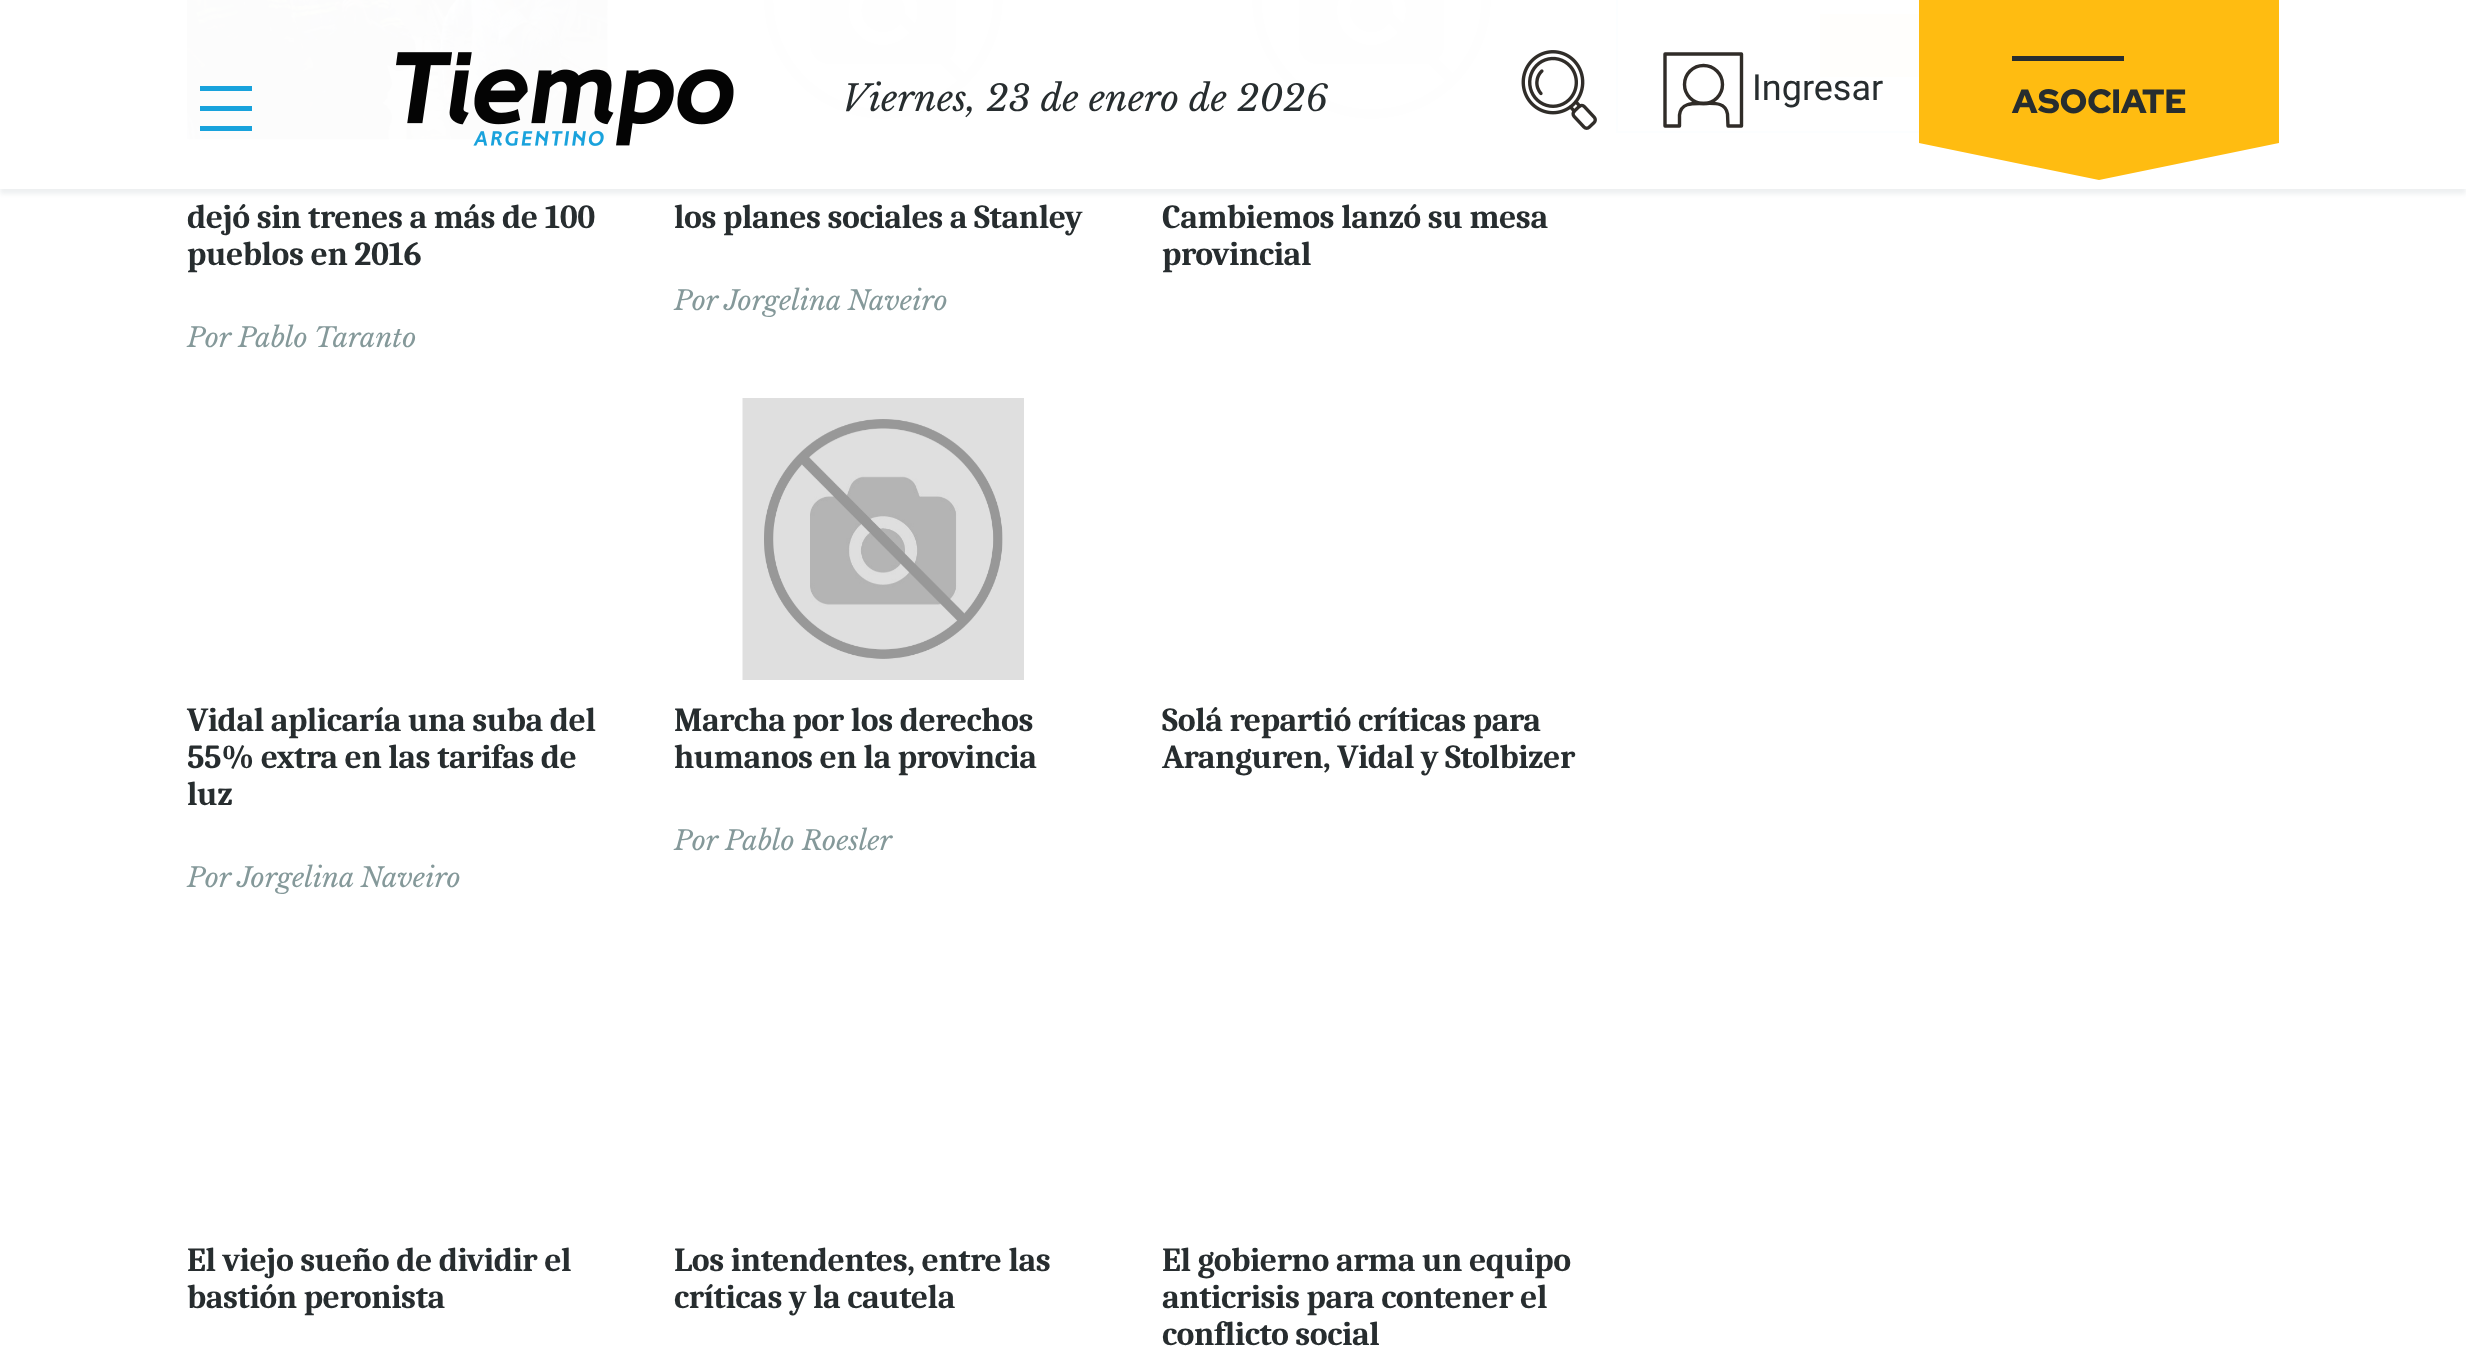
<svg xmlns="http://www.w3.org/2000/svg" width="2466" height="1358">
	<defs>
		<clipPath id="clip1"><rect x="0" y="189" width="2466" height="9" /></clipPath>
	</defs>
	<rect width="100%" height="100%" fill="#FFFFFF" />
	<rect x="1617" y="-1" width="628" height="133" fill="none" stroke="#18A2DC" stroke-width="2" />
	<rect x="1820" y="14" width="99" height="63" fill="#FFBC11" />
	<image x="187" y="0" width="421" height="140" href="assets/img3.png" />
	<image x="742" y="0" width="282" height="140" href="assets/img4.png" />
	<image x="1230" y="0" width="283" height="140" href="assets/img5.png" />
	<g clip-path="url(#clip1)">
		<rect x="0" y="5" width="2466" height="189" fill="#EEF0F1" filter="blur(2px)" />
	</g>
	<rect x="187" y="0" width="2059" height="140" fill="#FFFFFF" fill-opacity="0.99" />
	<rect x="200" y="86" width="52" height="5" fill="#18A2DC" />
	<rect x="200" y="106" width="52" height="5" fill="#18A2DC" />
	<rect x="200" y="126" width="52" height="5" fill="#18A2DC" />
	<image x="396" y="52" width="338" height="94" href="assets/img1.png" />
	<text x="842" y="111" font-family="Libre Baskerville" font-size="36" font-style="italic" fill="#272D2F">Viernes, 23 de enero de 2026</text>
	<image x="1521" y="50" width="76" height="80" href="assets/img2.png" />
	<path d="M1679.5 126V115C1681 102 1694 103.5 1703.5 103.5C1713 103.5 1725.5 101.5 1727.5 114L1728 126H1741.5V54H1665V126Z" fill="none" stroke="#302C28" stroke-width="3.4" stroke-linecap="round" stroke-linejoin="round" />
	<path d="M1703.5 103.5C1714 103.5 1722.5 95 1722.5 84.5C1722.5 74 1714 65.5 1703.5 65.5C1693 65.5 1684.5 74 1684.5 84.5C1684.5 95 1693 103.5 1703.5 103.5Z" fill="none" stroke="#302C28" stroke-width="3.4" stroke-linecap="round" stroke-linejoin="round" />
	<text x="1752" y="100" font-family="Roboto" font-size="36" fill="#272D2F">Ingresar</text>
	<path d="M1919 143V0H2279V143L2099 180Z" fill="#FFBC11" />
	<rect x="2012" y="56" width="112" height="5" fill="#272D2F" />
	<text x="2012" y="113" font-family="Red Hat Display" font-size="33.75" font-weight="900" fill="#272D2F">ASOCIATE</text>
	<g font-family="Caladea" font-size="33.75" font-weight="700" letter-spacing="-0.45" fill="#272D2F">
		<text x="187" y="228">dejó sin trenes a más de 100</text>
		<text x="187" y="265">pueblos en 2016</text>
	</g>
	<text x="187" y="347" font-family="Libre Baskerville" font-size="27" font-style="italic" fill="#85999A">Por Pablo Taranto</text>
	<text x="674" y="228" font-family="Caladea" font-size="33.75" font-weight="700" letter-spacing="-0.45" fill="#272D2F">los planes sociales a Stanley</text>
	<g font-family="Libre Baskerville" font-size="27" font-style="italic" fill="#85999A">
		<text x="674" y="310">Por</text>
		<text x="724" y="310">Jorgelina Naveiro</text>
	</g>
	<g font-family="Caladea" font-size="33.75" font-weight="700" letter-spacing="-0.45" fill="#272D2F">
		<text x="1162" y="228">Cambiemos lanzó su mesa</text>
		<text x="1162" y="265">provincial</text>
		<text x="187" y="731">Vidal aplicaría una suba del</text>
		<text x="187" y="768">55% extra en las tarifas de</text>
		<text x="187" y="805">luz</text>
	</g>
	<g font-family="Libre Baskerville" font-size="27" font-style="italic" fill="#85999A">
		<text x="187" y="887">Por</text>
		<text x="237" y="887">Jorgelina Naveiro</text>
	</g>
	<image x="742" y="398" width="282" height="282" href="assets/img6.png" />
	<g font-family="Caladea" font-size="33.75" font-weight="700" letter-spacing="-0.45" fill="#272D2F">
		<text x="674" y="731">Marcha por los derechos</text>
		<text x="674" y="768">humanos en la provincia</text>
	</g>
	<text x="674" y="850" font-family="Libre Baskerville" font-size="27" font-style="italic" fill="#85999A">Por Pablo Roesler</text>
	<g font-family="Caladea" font-size="33.75" font-weight="700" letter-spacing="-0.45" fill="#272D2F">
		<text x="1162" y="731">Solá repartió críticas para</text>
		<text x="1162" y="768">Aranguren, Vidal y Stolbizer</text>
		<text x="187" y="1271">El viejo sueño de dividir el</text>
		<text x="187" y="1308">bastión peronista</text>
		<text x="674" y="1271">Los intendentes, entre las</text>
		<text x="674" y="1308">críticas y la cautela</text>
		<text x="1162" y="1271">El gobierno arma un equipo</text>
		<text x="1162" y="1308">anticrisis para contener el</text>
		<text x="1162" y="1345">conflicto social</text>
	</g>
</svg>
